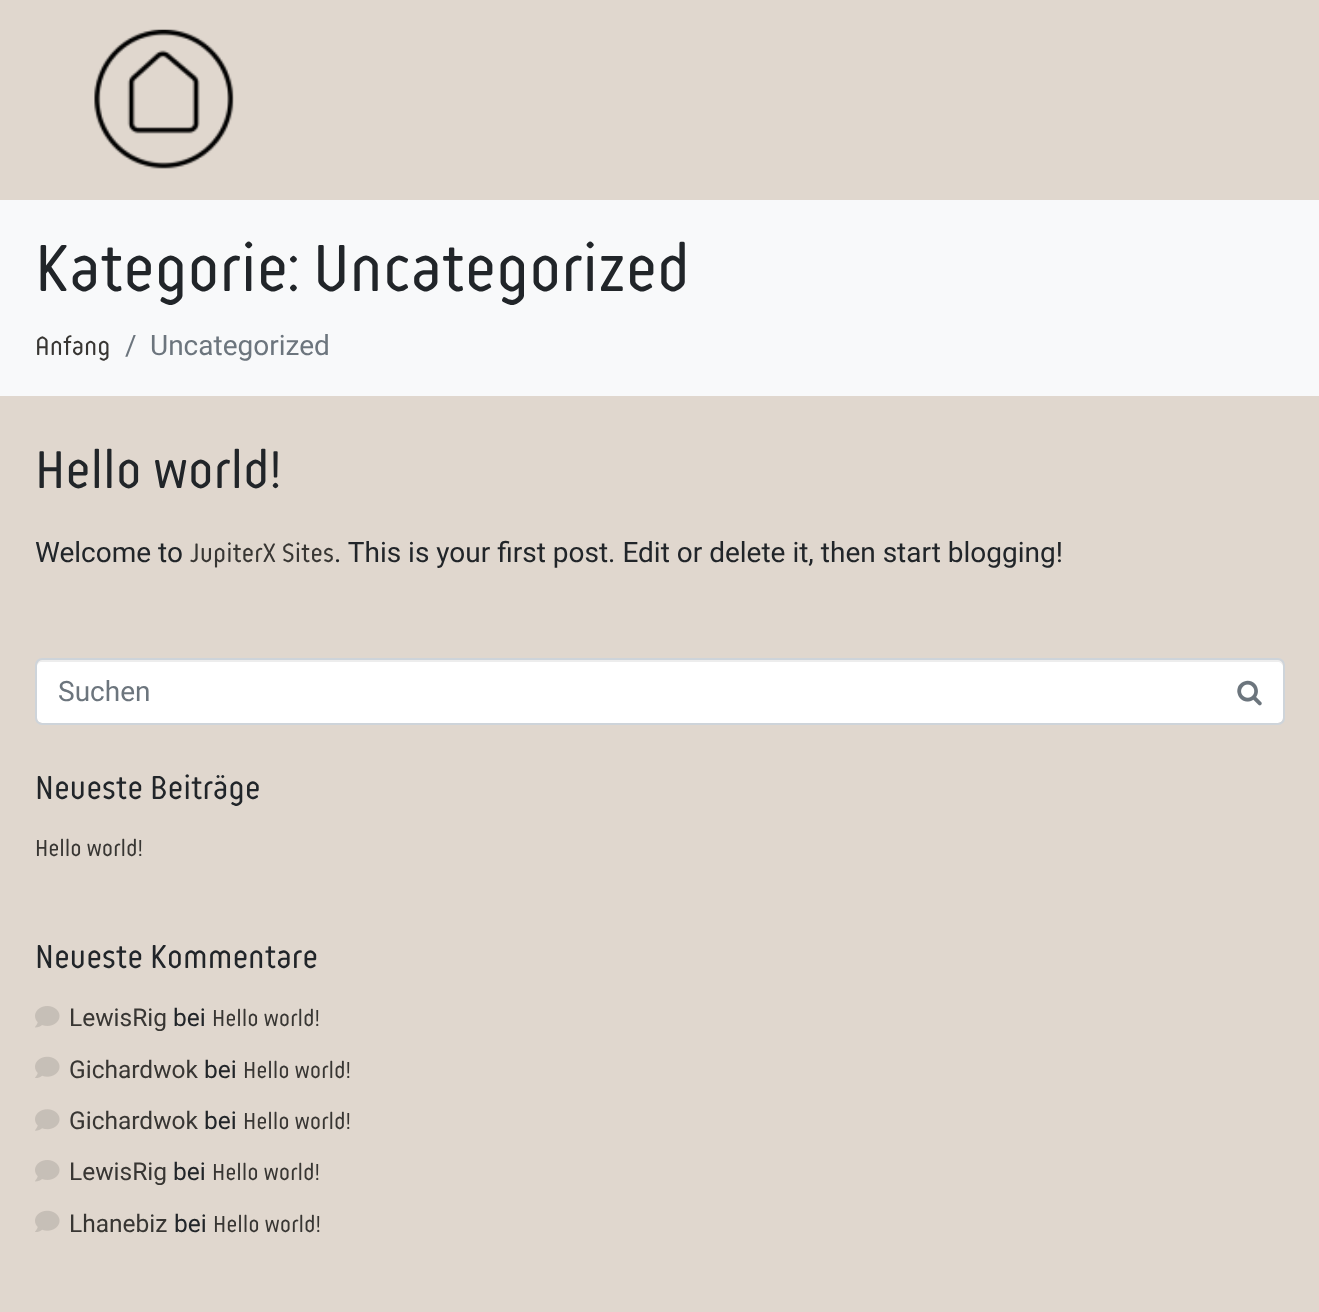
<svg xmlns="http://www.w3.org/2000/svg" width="1319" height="1312">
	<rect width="100%" height="100%" fill="#E0D7CE" />
	<image x="94" y="29" width="140" height="140" href="assets/img1.png" />
	<rect x="0" y="200" width="1319" height="196" fill="#F8F9FA" />
	<text x="35" y="291" font-family="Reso" font-size="70" fill="#212529">Kategorie: Uncategorized</text>
	<text x="35" y="355" font-family="Reso" font-size="28" fill="#383633">Anfang</text>
	<g font-family="Roboto" font-size="28" fill="#6C757D">
		<text x="125" y="355">/</text>
		<text x="150" y="355">Uncategorized</text>
	</g>
	<text x="35" y="488" font-family="Reso" font-size="56" fill="#212529">Hello world!</text>
	<text x="35" y="562" font-family="Roboto" font-size="28" fill="#212529">Welcome to</text>
	<text x="190" y="562" font-family="Reso" font-size="28" fill="#383633">JupiterX Sites</text>
	<text x="334" y="562" font-family="Roboto" font-size="28" fill="#212529">. This is your first post. Edit or delete it, then start blogging!</text>
	<rect x="37" y="660" width="1246" height="63" rx="5" fill="#FFFFFF" />
	<path d="M42 662H1278C1280 662 1283 664 1283 667V665C1283 662 1281 660 1278 660H42C39 660 37 662 37 665V667C37 664 39 662 42 662Z" fill="#000000" fill-opacity="0.07" />
	<rect x="36" y="659" width="1248" height="65" rx="6" fill="none" stroke="#CED4DA" stroke-width="2" />
	<text x="58" y="701" font-family="Roboto" font-size="28" fill="#6C757D">Suchen</text>
	<image x="1237" y="680" width="25" height="26" href="assets/img2.png" />
	<text x="35" y="799" font-family="Reso" font-size="35" fill="#212529">Neueste Beiträge</text>
	<text x="35" y="856" font-family="Reso" font-size="24.5" fill="#383633">Hello world!</text>
	<text x="35" y="968" font-family="Reso" font-size="35" fill="#212529">Neueste Kommentare</text>
	<image x="35" y="1006" width="25" height="22" href="assets/img3.png" />
	<text x="69" y="1026" font-family="Roboto" font-size="24.5" fill="#383633">LewisRig</text>
	<text x="173" y="1026" font-family="Roboto" font-size="24.5" fill="#212529">bei</text>
	<text x="212" y="1026" font-family="Reso" font-size="24.5" fill="#383633">Hello world!</text>
	<image x="35" y="1056" width="25" height="22" href="assets/img4.png" />
	<text x="69" y="1078" font-family="Roboto" font-size="24.5" fill="#383633">Gichardwok</text>
	<text x="204" y="1078" font-family="Roboto" font-size="24.5" fill="#212529">bei</text>
	<text x="243" y="1078" font-family="Reso" font-size="24.5" fill="#383633">Hello world!</text>
	<image x="35" y="1109" width="25" height="22" href="assets/img5.png" />
	<text x="69" y="1129" font-family="Roboto" font-size="24.5" fill="#383633">Gichardwok</text>
	<text x="204" y="1129" font-family="Roboto" font-size="24.5" fill="#212529">bei</text>
	<text x="243" y="1129" font-family="Reso" font-size="24.5" fill="#383633">Hello world!</text>
	<image x="35" y="1160" width="25" height="22" href="assets/img3.png" />
	<text x="69" y="1180" font-family="Roboto" font-size="24.5" fill="#383633">LewisRig</text>
	<text x="173" y="1180" font-family="Roboto" font-size="24.5" fill="#212529">bei</text>
	<text x="212" y="1180" font-family="Reso" font-size="24.5" fill="#383633">Hello world!</text>
	<image x="35" y="1210" width="25" height="22" href="assets/img4.png" />
	<text x="69" y="1232" font-family="Roboto" font-size="24.5" fill="#383633">Lhanebiz</text>
	<text x="174" y="1232" font-family="Roboto" font-size="24.5" fill="#212529">bei</text>
	<text x="213" y="1232" font-family="Reso" font-size="24.5" fill="#383633">Hello world!</text>
</svg>
